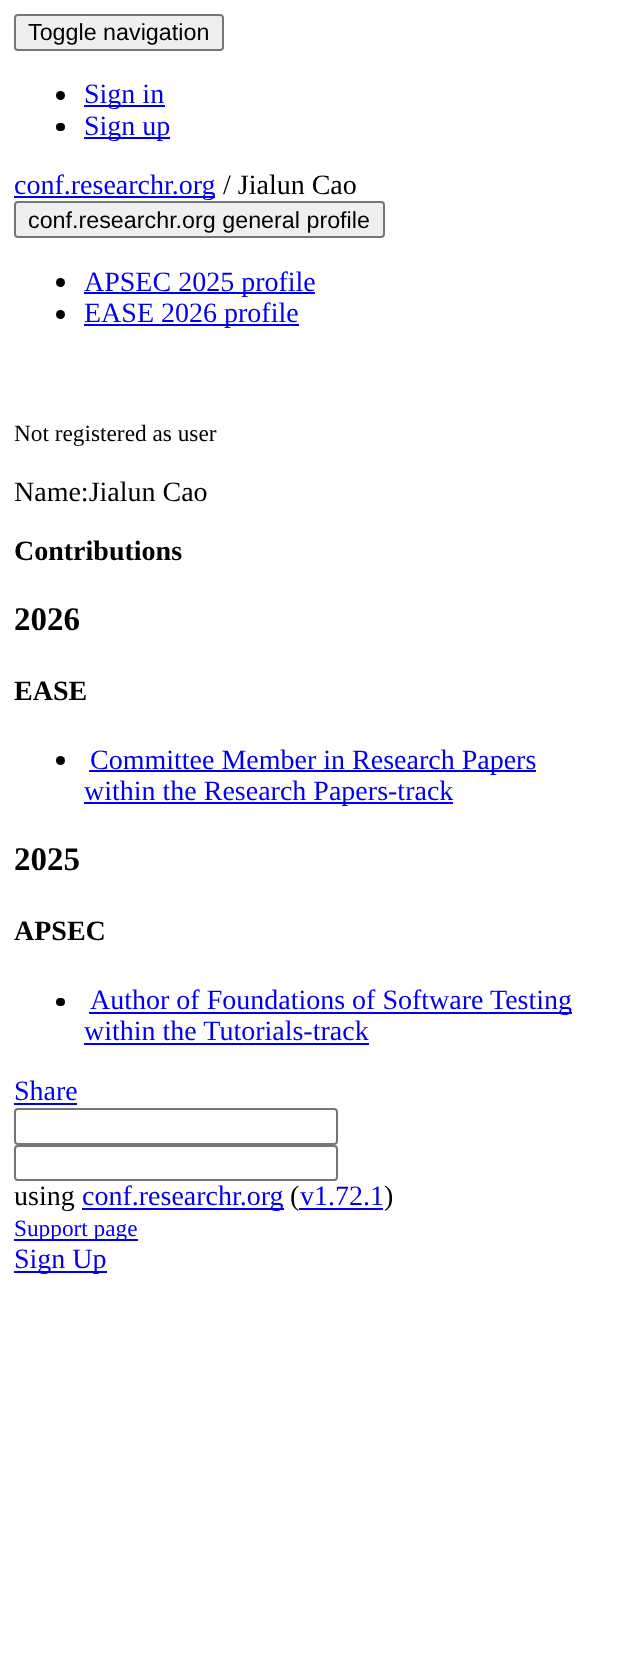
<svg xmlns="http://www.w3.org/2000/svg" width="619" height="1666">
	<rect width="100%" height="100%" fill="#FFFFFF" />
	<rect x="15" y="15" width="208" height="35" rx="3" fill="#EFEFEF" stroke="#767676" stroke-width="2" />
	<text x="28" y="40" font-family="Liberation Sans" font-size="23.3" fill="#000000">Toggle navigation</text>
	<circle cx="60.5" cy="95.5" r="4.5" fill="#000000" />
	<rect x="84" y="105" width="81" height="2" fill="#0000EE" />
	<text x="84" y="103" font-family="Liberation Serif" font-size="28" fill="#0000EE">Sign in</text>
	<rect x="56" y="123" width="9" height="8" rx="4" fill="#000000" />
	<rect x="84" y="137" width="86" height="2" fill="#0000EE" />
	<text x="84" y="135" font-family="Liberation Serif" font-size="28" fill="#0000EE">Sign up</text>
	<rect x="14" y="196" width="201" height="2" fill="#0000EE" />
	<text x="14" y="194" font-family="Liberation Serif" font-size="28" fill="#0000EE">conf.researchr.org</text>
	<text x="223" y="194" font-family="Liberation Serif" font-size="28" fill="#000000">/ Jialun Cao</text>
	<rect x="15" y="202" width="369" height="35" rx="3" fill="#EFEFEF" stroke="#767676" stroke-width="2" />
	<text x="28" y="228" font-family="Liberation Sans" font-size="23.3" fill="#000000">conf.researchr.org general profile</text>
	<circle cx="60.5" cy="282.5" r="4.5" fill="#000000" />
	<rect x="84" y="292" width="231" height="2" fill="#0000EE" />
	<text x="84" y="291" font-family="Liberation Serif" font-size="28" fill="#0000EE">APSEC 2025 profile</text>
	<circle cx="60.5" cy="314.5" r="4.5" fill="#000000" />
	<rect x="84" y="324" width="215" height="2" fill="#0000EE" />
	<text x="84" y="322" font-family="Liberation Serif" font-size="28" fill="#0000EE">EASE 2026 profile</text>
	<text x="14" y="441" font-family="Liberation Serif" font-size="23.3" fill="#000000">Not registered as user</text>
	<text x="14" y="501" font-family="Liberation Serif" font-size="28" fill="#000000">Name:Jialun Cao</text>
	<text x="14" y="560" font-family="Liberation Serif" font-size="28" font-weight="700" fill="#000000">Contributions</text>
	<text x="14" y="630" font-family="Liberation Serif" font-size="33" font-weight="700" fill="#000000">2026</text>
	<text x="14" y="700" font-family="Liberation Serif" font-size="28" font-weight="700" fill="#000000">EASE</text>
	<circle cx="60.5" cy="760.5" r="4.5" fill="#000000" />
	<rect x="89" y="770" width="447" height="2" fill="#0000EE" />
	<text x="90" y="769" font-family="Liberation Serif" font-size="28" fill="#0000EE">Committee Member in Research Papers</text>
	<rect x="84" y="802" width="369" height="2" fill="#0000EE" />
	<text x="84" y="800" font-family="Liberation Serif" font-size="28" fill="#0000EE">within the Research Papers-track</text>
	<text x="14" y="870" font-family="Liberation Serif" font-size="33" font-weight="700" fill="#000000">2025</text>
	<text x="14" y="940" font-family="Liberation Serif" font-size="28" font-weight="700" fill="#000000">APSEC</text>
	<rect x="56" y="998" width="9" height="8" rx="4" fill="#000000" />
	<rect x="89" y="1012" width="483" height="2" fill="#0000EE" />
	<g font-family="Liberation Serif" font-size="28" fill="#0000EE">
		<text x="90" y="1009">Author of Foundations of Software Testing</text>
		<text x="84" y="1040">within the Tutorials-track</text>
	</g>
	<rect x="84" y="1043" width="285" height="2" fill="#0000EE" />
	<text x="14" y="1100" font-family="Liberation Serif" font-size="28" fill="#0000EE">Share</text>
	<rect x="14" y="1103" width="63" height="2" fill="#0000EE" />
	<rect x="15" y="1109" width="322" height="35" rx="3" fill="none" stroke="#767676" stroke-width="2" />
	<rect x="15" y="1146" width="322" height="34" rx="3" fill="none" stroke="#767676" stroke-width="2" />
	<text x="14" y="1205" font-family="Liberation Serif" font-size="28" fill="#000000">using</text>
	<rect x="82" y="1208" width="202" height="2" fill="#0000EE" />
	<text x="82" y="1205" font-family="Liberation Serif" font-size="28" fill="#0000EE">conf.researchr.org</text>
	<text x="290" y="1205" font-family="Liberation Serif" font-size="28" fill="#000000">(</text>
	<text x="300" y="1205" font-family="Liberation Serif" font-size="28" fill="#0000EE">v1.72.1</text>
	<rect x="299" y="1208" width="84" height="2" fill="#0000EE" />
	<text x="384" y="1205" font-family="Liberation Serif" font-size="28" fill="#000000">)</text>
	<rect x="14" y="1239" width="124" height="2" fill="#0000EE" />
	<text x="14" y="1236" font-family="Liberation Serif" font-size="23.3" fill="#0000EE">Support page</text>
	<rect x="14" y="1271" width="93" height="2" fill="#0000EE" />
	<text x="14" y="1268" font-family="Liberation Serif" font-size="28" fill="#0000EE">Sign Up</text>
</svg>
